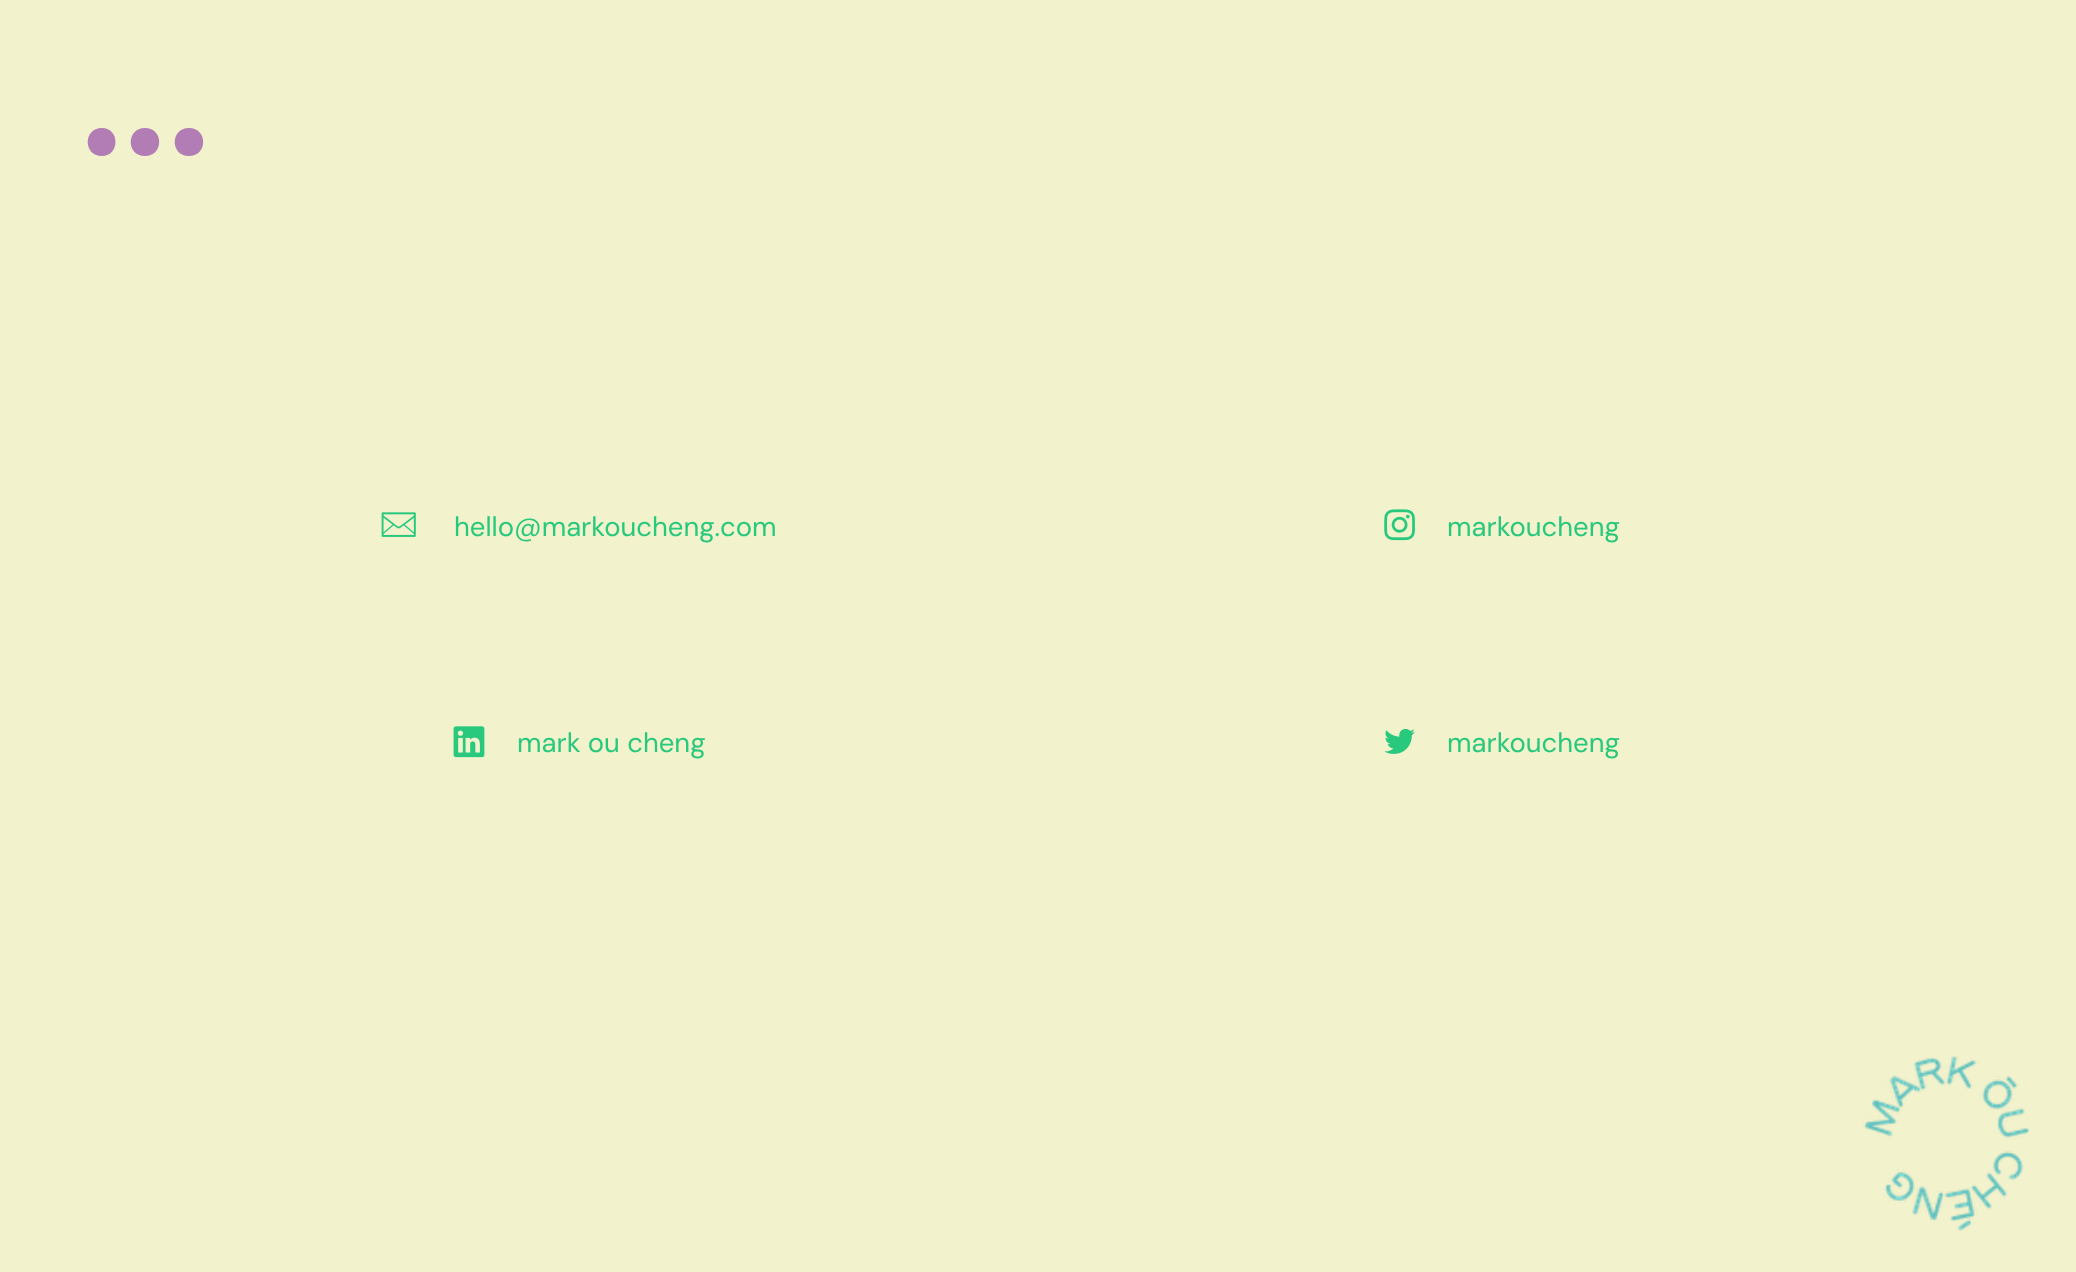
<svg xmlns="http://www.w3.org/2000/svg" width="2076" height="1272">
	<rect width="100%" height="100%" fill="#F2F2CC" />
	<path d="M102 156C120 156 120 128 102 128C83 128 83 156 102 156ZM145 156C164 156 164 128 145 128C126 128 126 156 145 156ZM189 156C208 156 208 128 189 128C170 128 170 156 189 156Z" fill="#B27DB5" />
	<image x="381" y="512" width="35" height="25" href="assets/img1.png" />
	<text x="454" y="536" font-family="DM Sans" font-size="27.5" fill="#28C87D">hello@markoucheng.com</text>
	<image x="1384" y="509" width="31" height="32" href="assets/img2.png" />
	<text x="1447" y="536" font-family="DM Sans" font-size="27.5" fill="#28C87D">markoucheng</text>
	<image x="453" y="726" width="32" height="32" href="assets/img3.png" />
	<text x="517" y="752" font-family="DM Sans" font-size="27.5" fill="#28C87D">mark ou cheng</text>
	<image x="1384" y="728" width="31" height="26" href="assets/img4.png" />
	<text x="1447" y="752" font-family="DM Sans" font-size="27.5" fill="#28C87D">markoucheng</text>
	<image x="1863" y="1055" width="166" height="176" href="assets/img5.png" />
</svg>
